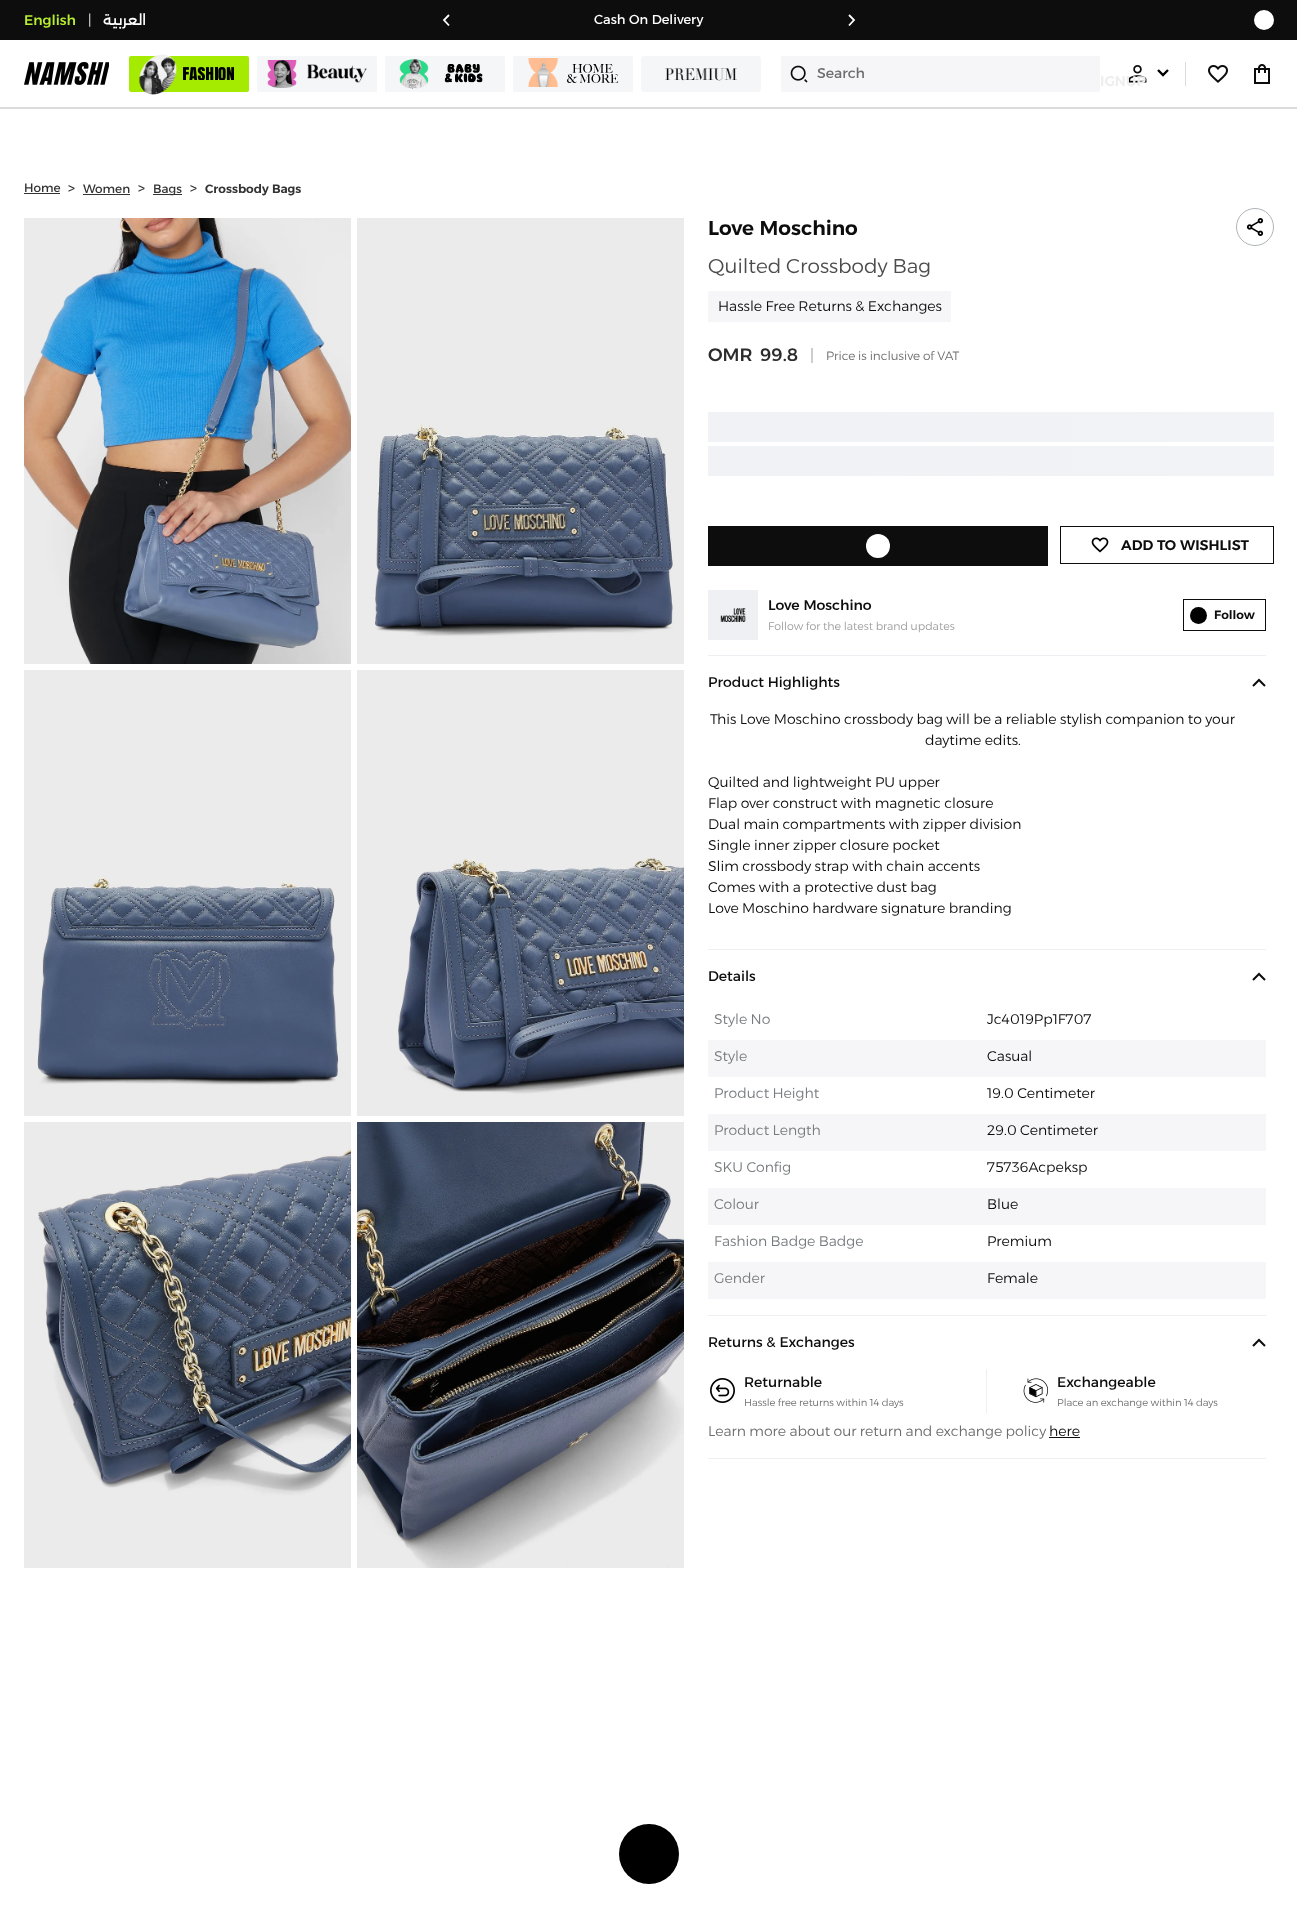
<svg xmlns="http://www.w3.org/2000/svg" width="1297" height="1931">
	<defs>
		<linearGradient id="g1" gradientUnits="userSpaceOnUse" x1="708" y1="427" x2="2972" y2="427"><stop offset="0" stop-color="#F1F2F5" /><stop offset="0.7" stop-color="#F4F5F7" /><stop offset="0.9" stop-color="#FAFAFB" /><stop offset="1" stop-color="#F1F2F5" /></linearGradient>
		<linearGradient id="g2" gradientUnits="userSpaceOnUse" x1="708" y1="461" x2="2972" y2="461"><stop offset="0" stop-color="#F1F2F5" /><stop offset="0.7" stop-color="#F4F5F7" /><stop offset="0.9" stop-color="#FAFAFB" /><stop offset="1" stop-color="#F1F2F5" /></linearGradient>
	</defs>
	<rect width="100%" height="100%" fill="#FFFFFF" />
	<rect x="0" y="0" width="1297" height="40" fill="#0D0D0D" />
	<text x="24" y="25" font-family="Alexandria" font-size="14" font-weight="500" fill="#B8ED31">English</text>
	<text x="88" y="25" font-family="Alexandria" font-size="14" font-weight="300" fill="#FFFFFF">|</text>
	<text x="146" y="25" font-family="Alexandria" font-size="14" font-weight="500" direction="rtl" fill="#FFFFFF">العربية</text>
	<path d="M449 25.5L444 20L449 15" fill="none" stroke="#FFFFFF" stroke-width="1.8" />
	<text x="594" y="24" font-family="Alexandria" font-size="13" fill="#FFFFFF">Cash On Delivery</text>
	<path d="M849 25.5L854 20L849 15" fill="none" stroke="#FFFFFF" stroke-width="1.8" />
	<circle cx="1264" cy="20" r="10" fill="#FFFFFF" />
	<image x="24" y="62" width="85" height="23" href="assets/img1.png" />
	<rect x="129" y="56" width="120" height="36" rx="2" fill="#A4EB01" />
	<image x="139" y="54" width="38" height="41" href="assets/img2.png" />
	<image x="183" y="67" width="51" height="13" href="assets/img3.png" />
	<rect x="257" y="56" width="120" height="36" rx="2" fill="#F5F6F8" />
	<image x="267" y="60" width="30" height="28" href="assets/img4.png" />
	<image x="307" y="64" width="60" height="19" href="assets/img5.png" />
	<rect x="385" y="56" width="120" height="36" rx="2" fill="#F5F6F8" />
	<image x="399" y="59" width="30" height="30" href="assets/img6.png" />
	<image x="444" y="64" width="39" height="19" href="assets/img7.png" />
	<rect x="513" y="56" width="120" height="36" rx="2" fill="#F5F6F8" />
	<image x="528" y="58" width="31" height="29" href="assets/img8.png" />
	<image x="567" y="64" width="52" height="19" href="assets/img9.png" />
	<image x="641" y="56" width="120" height="36" href="assets/img10.png" />
	<rect x="781" y="56" width="319" height="36" rx="2" fill="#F6F6F8" />
	<image x="790" y="65" width="18" height="18" href="assets/img11.png" />
	<text x="817" y="78" font-family="Alexandria" font-size="14" fill="#6E6E6E">Search</text>
	<rect x="1185" y="62" width="1" height="24" fill="#DBDBDB" />
	<image x="1208" y="65" width="20" height="18" href="assets/img12.png" />
	<image x="1254" y="64" width="16" height="20" href="assets/img13.png" />
	<image x="1128" y="65" width="19" height="18" href="assets/img14.png" />
	<text x="1100" y="86" font-family="Alexandria" font-size="14" font-weight="600" fill="#EEEEEF">IGNUP</text>
	<path d="M1158 70L1163 75L1168 70" fill="none" stroke="#000000" stroke-width="2.4" />
	<rect x="0" y="107" width="1297" height="2" fill="#DBDBDB" />
	<text x="24" y="192" font-family="Alexandria" font-size="12" fill="#333333">Home</text>
	<rect x="24" y="193" width="36" height="1" fill="#333333" />
	<text x="68" y="193" font-family="Alexandria" font-size="14" fill="#333333">&gt;</text>
	<text x="83" y="193" font-family="Alexandria" font-size="12" fill="#333333">Women</text>
	<rect x="83" y="194" width="47" height="1" fill="#333333" />
	<text x="138" y="193" font-family="Alexandria" font-size="14" fill="#333333">&gt;</text>
	<rect x="153" y="194" width="29" height="1" fill="#333333" />
	<text x="153" y="193" font-family="Alexandria" font-size="12" fill="#333333">Bags</text>
	<text x="190" y="193" font-family="Alexandria" font-size="14" fill="#333333">&gt;</text>
	<text x="205" y="193" font-family="Alexandria" font-size="12" font-weight="600" fill="#333333">Crossbody Bags</text>
	<image x="24" y="218" width="327" height="446" href="assets/img15.png" />
	<image x="357" y="218" width="327" height="446" href="assets/img16.png" />
	<image x="24" y="670" width="327" height="446" href="assets/img17.png" />
	<image x="357" y="670" width="327" height="446" href="assets/img18.png" />
	<image x="24" y="1122" width="327" height="446" href="assets/img19.png" />
	<image x="357" y="1122" width="327" height="446" href="assets/img20.png" />
	<text x="708" y="235" font-family="Alexandria" font-size="20" font-weight="600" fill="#0D0D0D">Love Moschino</text>
	<circle cx="1255" cy="227" r="18.5" fill="none" stroke="#B0B4B7" />
	<image x="1246" y="218" width="18" height="18" href="assets/img21.png" />
	<text x="708" y="273" font-family="Alexandria" font-size="20" font-weight="300" fill="#4C4C4C">Quilted Crossbody Bag</text>
	<rect x="708" y="291" width="243" height="31" fill="#F6F6F8" />
	<text x="718" y="311" font-family="Alexandria" font-size="14" font-weight="300" fill="#0D0D0D">Hassle Free Returns &amp; Exchanges</text>
	<g font-family="Alexandria" font-size="18" font-weight="500" fill="#2B2B2B">
		<text x="708" y="361">OMR</text>
		<text x="760" y="361">99.8</text>
	</g>
	<text x="810" y="361" font-family="Alexandria" font-size="16" font-weight="300" fill="#9E9E9E">|</text>
	<text x="826" y="360" font-family="Alexandria" font-size="12" font-weight="300" fill="#6E6E6E">Price is inclusive of VAT</text>
	<rect x="708" y="412" width="566" height="30" fill="url(#g1)" />
	<rect x="708" y="446" width="566" height="30" fill="url(#g2)" />
	<rect x="708" y="526" width="340" height="40" fill="#0D0D0D" />
	<circle cx="878" cy="546" r="12" fill="#FFFFFF" />
	<rect x="1060.5" y="526.5" width="213" height="37" fill="none" stroke="#0D0D0D" />
	<image x="1091" y="537" width="18" height="16" href="assets/img22.png" />
	<text x="1121" y="550" font-family="Alexandria" font-size="14" font-weight="600" fill="#0D0D0D">ADD TO WISHLIST</text>
	<rect x="708" y="655" width="558" height="1" fill="#EDEFF2" />
	<rect x="708" y="590" width="50" height="50" fill="#EEF0F3" />
	<image x="720" y="608" width="26" height="14" href="assets/img23.png" />
	<text x="768" y="610" font-family="Alexandria" font-size="14" font-weight="500" fill="#0D0D0D">Love Moschino</text>
	<text x="768" y="630" font-family="Alexandria" font-size="11" font-weight="300" fill="#9E9E9E">Follow for the latest brand updates</text>
	<rect x="1183.5" y="599.5" width="82" height="31" fill="none" stroke="#0D0D0D" />
	<circle cx="1198.5" cy="615.5" r="8.5" fill="#000000" />
	<text x="1214" y="619" font-family="Alexandria" font-size="12" font-weight="600" fill="#0D0D0D">Follow</text>
	<rect x="708" y="949" width="558" height="1" fill="#EDEFF2" />
	<text x="708" y="687" font-family="Alexandria" font-size="14" fill="#0D0D0D">Product Highlights</text>
	<path d="M1265 686L1259 680L1253 686" fill="none" stroke="#0C0C0C" stroke-width="2" />
	<g font-family="Alexandria" font-size="14" font-weight="300" fill="#0D0D0D">
		<text x="710" y="724">This Love Moschino crossbody bag will be a reliable stylish companion to your</text>
		<text x="925" y="745">daytime edits.</text>
		<text x="708" y="787">Quilted and lightweight PU upper</text>
		<text x="708" y="808">Flap over construct with magnetic closure</text>
		<text x="708" y="829">Dual main compartments with zipper division</text>
		<text x="708" y="850">Single inner zipper closure pocket</text>
		<text x="708" y="871">Slim crossbody strap with chain accents</text>
		<text x="708" y="892">Comes with a protective dust bag</text>
		<text x="708" y="913">Love Moschino hardware signature branding</text>
	</g>
	<rect x="708" y="1315" width="558" height="1" fill="#EDEFF2" />
	<text x="708" y="981" font-family="Alexandria" font-size="14" fill="#0D0D0D">Details</text>
	<path d="M1265 980L1259 974L1253 980" fill="none" stroke="#0C0C0C" stroke-width="2" />
	<text x="714" y="1024" font-family="Alexandria" font-size="14" font-weight="300" fill="#797D80">Style No</text>
	<text x="987" y="1024" font-family="Alexandria" font-size="14" font-weight="300" fill="#0D0D0D">Jc4019Pp1F707</text>
	<rect x="708" y="1040" width="558" height="37" fill="#F6F6F8" />
	<text x="714" y="1061" font-family="Alexandria" font-size="14" font-weight="300" fill="#797D80">Style</text>
	<text x="987" y="1061" font-family="Alexandria" font-size="14" font-weight="300" fill="#0D0D0D">Casual</text>
	<text x="714" y="1098" font-family="Alexandria" font-size="14" font-weight="300" fill="#797D80">Product Height</text>
	<text x="987" y="1098" font-family="Alexandria" font-size="14" font-weight="300" fill="#0D0D0D">19.0 Centimeter</text>
	<rect x="708" y="1114" width="558" height="37" fill="#F6F6F8" />
	<text x="714" y="1135" font-family="Alexandria" font-size="14" font-weight="300" fill="#797D80">Product Length</text>
	<text x="987" y="1135" font-family="Alexandria" font-size="14" font-weight="300" fill="#0D0D0D">29.0 Centimeter</text>
	<text x="714" y="1172" font-family="Alexandria" font-size="14" font-weight="300" fill="#797D80">SKU Config</text>
	<text x="987" y="1172" font-family="Alexandria" font-size="14" font-weight="300" fill="#0D0D0D">75736Acpeksp</text>
	<rect x="708" y="1188" width="558" height="37" fill="#F6F6F8" />
	<text x="714" y="1209" font-family="Alexandria" font-size="14" font-weight="300" fill="#797D80">Colour</text>
	<text x="987" y="1209" font-family="Alexandria" font-size="14" font-weight="300" fill="#0D0D0D">Blue</text>
	<text x="714" y="1246" font-family="Alexandria" font-size="14" font-weight="300" fill="#797D80">Fashion Badge Badge</text>
	<text x="987" y="1246" font-family="Alexandria" font-size="14" font-weight="300" fill="#0D0D0D">Premium</text>
	<rect x="708" y="1262" width="558" height="37" fill="#F6F6F8" />
	<text x="714" y="1283" font-family="Alexandria" font-size="14" font-weight="300" fill="#797D80">Gender</text>
	<text x="987" y="1283" font-family="Alexandria" font-size="14" font-weight="300" fill="#0D0D0D">Female</text>
	<rect x="708" y="1458" width="558" height="1" fill="#EDEFF2" />
	<text x="708" y="1347" font-family="Alexandria" font-size="14" fill="#0D0D0D">Returns &amp; Exchanges</text>
	<path d="M1265 1346L1259 1340L1253 1346" fill="none" stroke="#0C0C0C" stroke-width="2" />
	<image x="710" y="1378" width="25" height="25" href="assets/img24.png" />
	<text x="744" y="1387" font-family="Alexandria" font-size="14" fill="#0D0D0D">Returnable</text>
	<text x="744" y="1406" font-family="Alexandria" font-size="10" font-weight="300" fill="#6E6E6E">Hassle free returns within 14 days</text>
	<rect x="986" y="1369" width="1" height="44" fill="#EDEFF2" />
	<image x="1023" y="1378" width="26" height="25" href="assets/img25.png" />
	<text x="1057" y="1387" font-family="Alexandria" font-size="14" fill="#0D0D0D">Exchangeable</text>
	<text x="1057" y="1406" font-family="Alexandria" font-size="10" font-weight="300" fill="#6E6E6E">Place an exchange within 14 days</text>
	<text x="708" y="1436" font-family="Alexandria" font-size="14" font-weight="300" fill="#6E6E6E">Learn more about our return and exchange policy</text>
	<text x="1049" y="1436" font-family="Alexandria" font-size="14" font-weight="300" fill="#0D0D0D">here</text>
	<rect x="1049" y="1437" width="31" height="1" fill="#0D0D0D" />
	<circle cx="649" cy="1854" r="30" fill="#000000" />
</svg>
